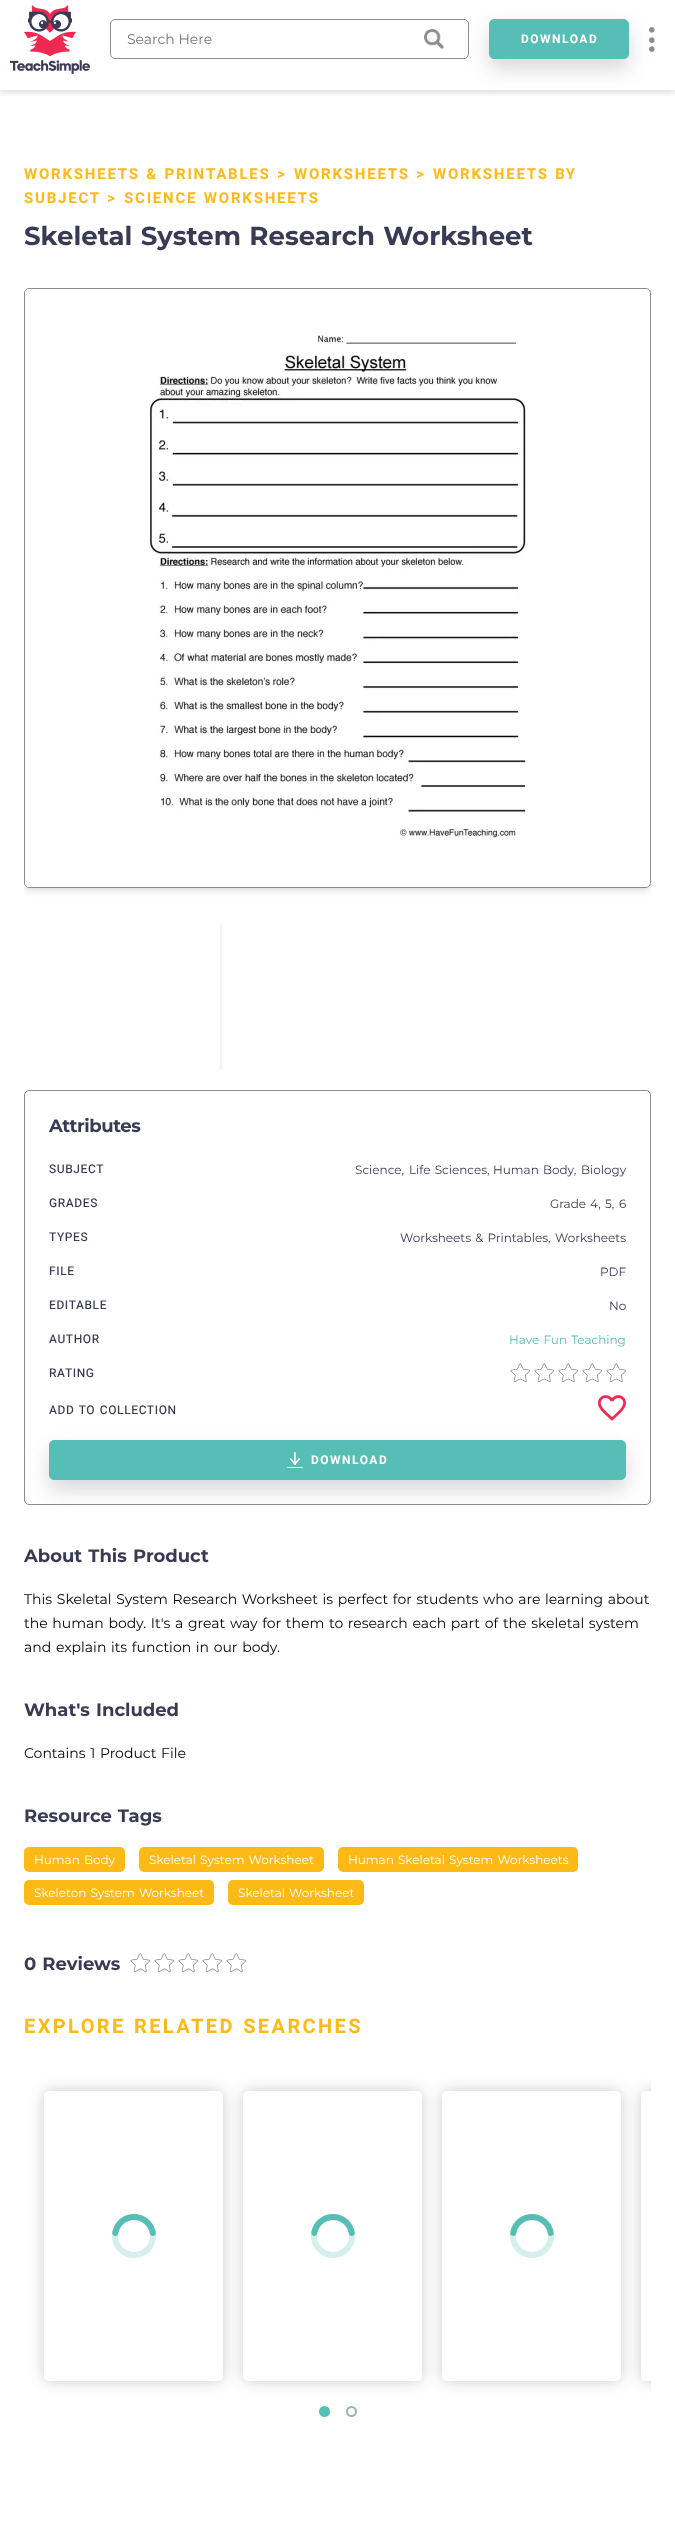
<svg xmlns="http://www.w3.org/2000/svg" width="675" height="2531">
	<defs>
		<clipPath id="clip1"><rect x="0" y="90" width="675" height="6" /></clipPath>
		<clipPath id="clip2"><rect x="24" y="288" width="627" height="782" /></clipPath>
		<clipPath id="clip3"><path d="M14 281H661V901H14ZM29 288H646C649 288 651 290 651 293V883C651 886 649 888 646 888H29C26 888 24 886 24 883V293C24 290 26 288 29 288Z" clip-rule="evenodd" /></clipPath>
		<clipPath id="clip4"><rect x="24" y="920" width="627" height="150" /></clipPath>
		<clipPath id="clip5"><rect x="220" y="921" width="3" height="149" /></clipPath>
		<clipPath id="clip6"><rect x="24" y="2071" width="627" height="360" /></clipPath>
	</defs>
	<rect width="100%" height="100%" fill="#FFFFFF" />
	<g clip-path="url(#clip1)">
		<rect x="0" y="3" width="675" height="90" fill="#3A3A55" fill-opacity="0.16" filter="blur(3px)" />
	</g>
	<image x="10" y="5" width="80" height="69" href="assets/img1.png" />
	<rect x="489" y="29" width="140" height="40" rx="5" fill="#3A3A55" fill-opacity="0.2" filter="blur(10px)" />
	<rect x="110.5" y="19.5" width="358" height="39" rx="4.5" fill="none" stroke="#8C8C8C" />
	<text x="127" y="44" font-family="Montserrat" font-size="14" fill="#757575">Search Here</text>
	<image x="424" y="29" width="20" height="20" href="assets/img2.png" />
	<rect x="489.5" y="19.5" width="139" height="39" rx="4.5" fill="#57BEB5" stroke="#57BEB5" />
	<text x="521" y="43" font-family="Heebo" font-size="12" font-weight="700" letter-spacing="1.5" fill="#FFFFFF">DOWNLOAD</text>
	<image x="649" y="27" width="6" height="25" href="assets/img3.png" />
	<g font-family="Heebo" font-size="15" font-weight="700" letter-spacing="1.8" fill="#FDBA16">
		<text x="24" y="179" word-spacing="1">WORKSHEETS &amp; PRINTABLES</text>
		<text x="277" y="179">&gt;</text>
		<text x="294" y="179">WORKSHEETS</text>
		<text x="416" y="179">&gt;</text>
		<text x="433" y="179" word-spacing="1">WORKSHEETS BY</text>
		<text x="24" y="203">SUBJECT</text>
		<text x="107" y="203">&gt;</text>
		<text x="124" y="203" word-spacing="1">SCIENCE WORKSHEETS</text>
	</g>
	<text x="24" y="245" word-spacing="1" font-family="Montserrat" font-size="26" font-weight="700" fill="#3A3A55">Skeletal System Research Worksheet</text>
	<g clip-path="url(#clip2)">
		<g clip-path="url(#clip3)">
			<rect x="24" y="291" width="627" height="600" rx="5" fill="#3A3A55" fill-opacity="0.16" filter="blur(3px)" />
		</g>
	</g>
	<rect x="24.5" y="288.5" width="626" height="599" rx="4.5" fill="none" stroke="#8C8C8C" />
	<image x="150" y="332" width="376" height="507" href="assets/img4.png" />
	<g clip-path="url(#clip4)">
		<g clip-path="url(#clip5)">
			<rect x="24" y="923" width="196" height="150" fill="#3A3A55" fill-opacity="0.16" filter="blur(3px)" />
		</g>
	</g>
	<rect x="24.5" y="1090.5" width="626" height="414" rx="4.5" fill="none" stroke="#8C8C8C" />
	<text x="49" y="1132" font-family="Montserrat" font-size="18" font-weight="700" letter-spacing="-0.4" fill="#3A3A55">Attributes</text>
	<text x="49" y="1173" font-family="Heebo" font-size="12" font-weight="500" letter-spacing="0.6" fill="#3A3A55">SUBJECT</text>
	<g font-family="Montserrat" font-size="12" fill="#3A3A55">
		<text x="355" y="1174">Science,</text>
		<text x="409" y="1174" word-spacing="1">Life Sciences,</text>
		<text x="493" y="1174" word-spacing="1">Human Body,</text>
		<text x="581" y="1174">Biology</text>
	</g>
	<text x="49" y="1207" font-family="Heebo" font-size="12" font-weight="500" letter-spacing="0.6" fill="#3A3A55">GRADES</text>
	<g font-family="Montserrat" font-size="12" fill="#3A3A55">
		<text x="550" y="1208">Grade</text>
		<text x="590" y="1208">4,</text>
		<text x="605" y="1208">5,</text>
		<text x="619" y="1208">6</text>
	</g>
	<text x="49" y="1241" font-family="Heebo" font-size="12" font-weight="500" letter-spacing="0.6" fill="#3A3A55">TYPES</text>
	<g font-family="Montserrat" font-size="12" fill="#3A3A55">
		<text x="400" y="1242" word-spacing="1">Worksheets &amp; Printables,</text>
		<text x="555" y="1242">Worksheets</text>
	</g>
	<text x="49" y="1275" font-family="Heebo" font-size="12" font-weight="500" letter-spacing="0.6" fill="#3A3A55">FILE</text>
	<text x="600" y="1276" font-family="Montserrat" font-size="12" fill="#3A3A55">PDF</text>
	<text x="49" y="1309" font-family="Heebo" font-size="12" font-weight="500" letter-spacing="0.6" fill="#3A3A55">EDITABLE</text>
	<text x="609" y="1310" font-family="Montserrat" font-size="12" fill="#3A3A55">No</text>
	<text x="49" y="1343" font-family="Heebo" font-size="12" font-weight="500" letter-spacing="0.6" fill="#3A3A55">AUTHOR</text>
	<text x="509" y="1344" word-spacing="1" font-family="Montserrat" font-size="12" fill="#57BEB5">Have Fun Teaching</text>
	<text x="49" y="1377" font-family="Heebo" font-size="12" font-weight="500" letter-spacing="0.6" fill="#3A3A55">RATING</text>
	<image x="510" y="1363" width="20" height="19" href="assets/img5.png" />
	<image x="534" y="1363" width="20" height="19" href="assets/img5.png" />
	<image x="558" y="1363" width="20" height="19" href="assets/img5.png" />
	<image x="582" y="1363" width="20" height="19" href="assets/img5.png" />
	<image x="606" y="1363" width="20" height="19" href="assets/img5.png" />
	<text x="49" y="1414" word-spacing="1" font-family="Heebo" font-size="12" font-weight="500" letter-spacing="0.6" fill="#3A3A55">ADD TO COLLECTION</text>
	<rect x="49" y="1450" width="577" height="40" rx="5" fill="#3A3A55" fill-opacity="0.2" filter="blur(10px)" />
	<image x="598" y="1395" width="28" height="26" href="assets/img6.png" />
	<rect x="49.5" y="1440.5" width="576" height="39" rx="4.5" fill="#57BEB5" stroke="#57BEB5" />
	<image x="287" y="1452" width="16" height="16" href="assets/img7.png" />
	<text x="311" y="1464" font-family="Heebo" font-size="12" font-weight="700" letter-spacing="1.5" fill="#FFFFFF">DOWNLOAD</text>
	<text x="24" y="1562" word-spacing="1" font-family="Montserrat" font-size="18" font-weight="700" fill="#3A3A55">About This Product</text>
	<g font-family="Montserrat" font-size="14" fill="#000000">
		<text x="24" y="1604" word-spacing="1">This Skeletal System Research Worksheet is perfect for students who are learning about</text>
		<text x="24" y="1628" word-spacing="1">the human body. It's a great way for them to research each part of the skeletal system</text>
		<text x="24" y="1652" word-spacing="1">and explain its function in our body.</text>
	</g>
	<text x="24" y="1716" word-spacing="1" font-family="Montserrat" font-size="18" font-weight="700" fill="#3A3A55">What's Included</text>
	<text x="24" y="1758" word-spacing="1" font-family="Montserrat" font-size="14" fill="#000000">Contains 1 Product File</text>
	<text x="24" y="1822" word-spacing="1" font-family="Montserrat" font-size="18" font-weight="700" fill="#3A3A55">Resource Tags</text>
	<rect x="24" y="1847" width="101" height="25" rx="5" fill="#FDBA16" />
	<text x="34" y="1864" word-spacing="1" font-family="Montserrat" font-size="12" fill="#FFFFFF">Human Body</text>
	<rect x="139" y="1847" width="185" height="25" rx="5" fill="#FDBA16" />
	<text x="149" y="1864" word-spacing="1" font-family="Montserrat" font-size="12" fill="#FFFFFF">Skeletal System Worksheet</text>
	<rect x="338" y="1847" width="240" height="25" rx="5" fill="#FDBA16" />
	<text x="348" y="1864" word-spacing="1" font-family="Montserrat" font-size="12" fill="#FFFFFF">Human Skeletal System Worksheets</text>
	<rect x="24" y="1880" width="190" height="25" rx="5" fill="#FDBA16" />
	<text x="34" y="1897" word-spacing="1" font-family="Montserrat" font-size="12" fill="#FFFFFF">Skeleton System Worksheet</text>
	<rect x="228" y="1880" width="136" height="25" rx="5" fill="#FDBA16" />
	<text x="238" y="1897" word-spacing="1" font-family="Montserrat" font-size="12" fill="#FFFFFF">Skeletal Worksheet</text>
	<text x="24" y="1970" word-spacing="1" font-family="Montserrat" font-size="18" font-weight="700" fill="#3A3A55">0 Reviews</text>
	<image x="130" y="1953" width="20" height="19" href="assets/img5.png" />
	<image x="154" y="1953" width="20" height="19" href="assets/img5.png" />
	<image x="178" y="1953" width="20" height="19" href="assets/img5.png" />
	<image x="202" y="1953" width="20" height="19" href="assets/img5.png" />
	<image x="226" y="1953" width="20" height="19" href="assets/img5.png" />
	<text x="24" y="2033" word-spacing="1" font-family="Heebo" font-size="20" font-weight="700" letter-spacing="2.4" fill="#FDBA16">EXPLORE RELATED SEARCHES</text>
	<rect x="44" y="2091" width="179" height="290" rx="5" fill="#000000" fill-opacity="0.2" filter="blur(7.5px)" />
	<rect x="44" y="2091" width="179" height="290" rx="5" fill="#FFFFFF" />
	<image x="112" y="2214" width="44" height="44" href="assets/img8.png" />
	<rect x="243" y="2091" width="179" height="290" rx="5" fill="#000000" fill-opacity="0.2" filter="blur(7.5px)" />
	<rect x="243" y="2091" width="179" height="290" rx="5" fill="#FFFFFF" />
	<image x="311" y="2214" width="44" height="44" href="assets/img8.png" />
	<rect x="442" y="2091" width="179" height="290" rx="5" fill="#000000" fill-opacity="0.2" filter="blur(7.5px)" />
	<rect x="442" y="2091" width="179" height="290" rx="5" fill="#FFFFFF" />
	<image x="510" y="2214" width="44" height="44" href="assets/img8.png" />
	<g clip-path="url(#clip6)">
		<rect x="641" y="2091" width="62" height="290" rx="5" fill="#000000" fill-opacity="0.2" filter="blur(7.5px)" />
	</g>
	<path d="M646 2091H651V2381H646C643 2381 641 2379 641 2376V2096C641 2093 643 2091 646 2091Z" fill="#FFFFFF" />
	<circle cx="324.5" cy="2411.5" r="5.5" fill="#57BEB5" />
	<circle cx="351.5" cy="2411.5" r="4.5" fill="none" stroke="#9DAFBD" stroke-width="2" />
</svg>
